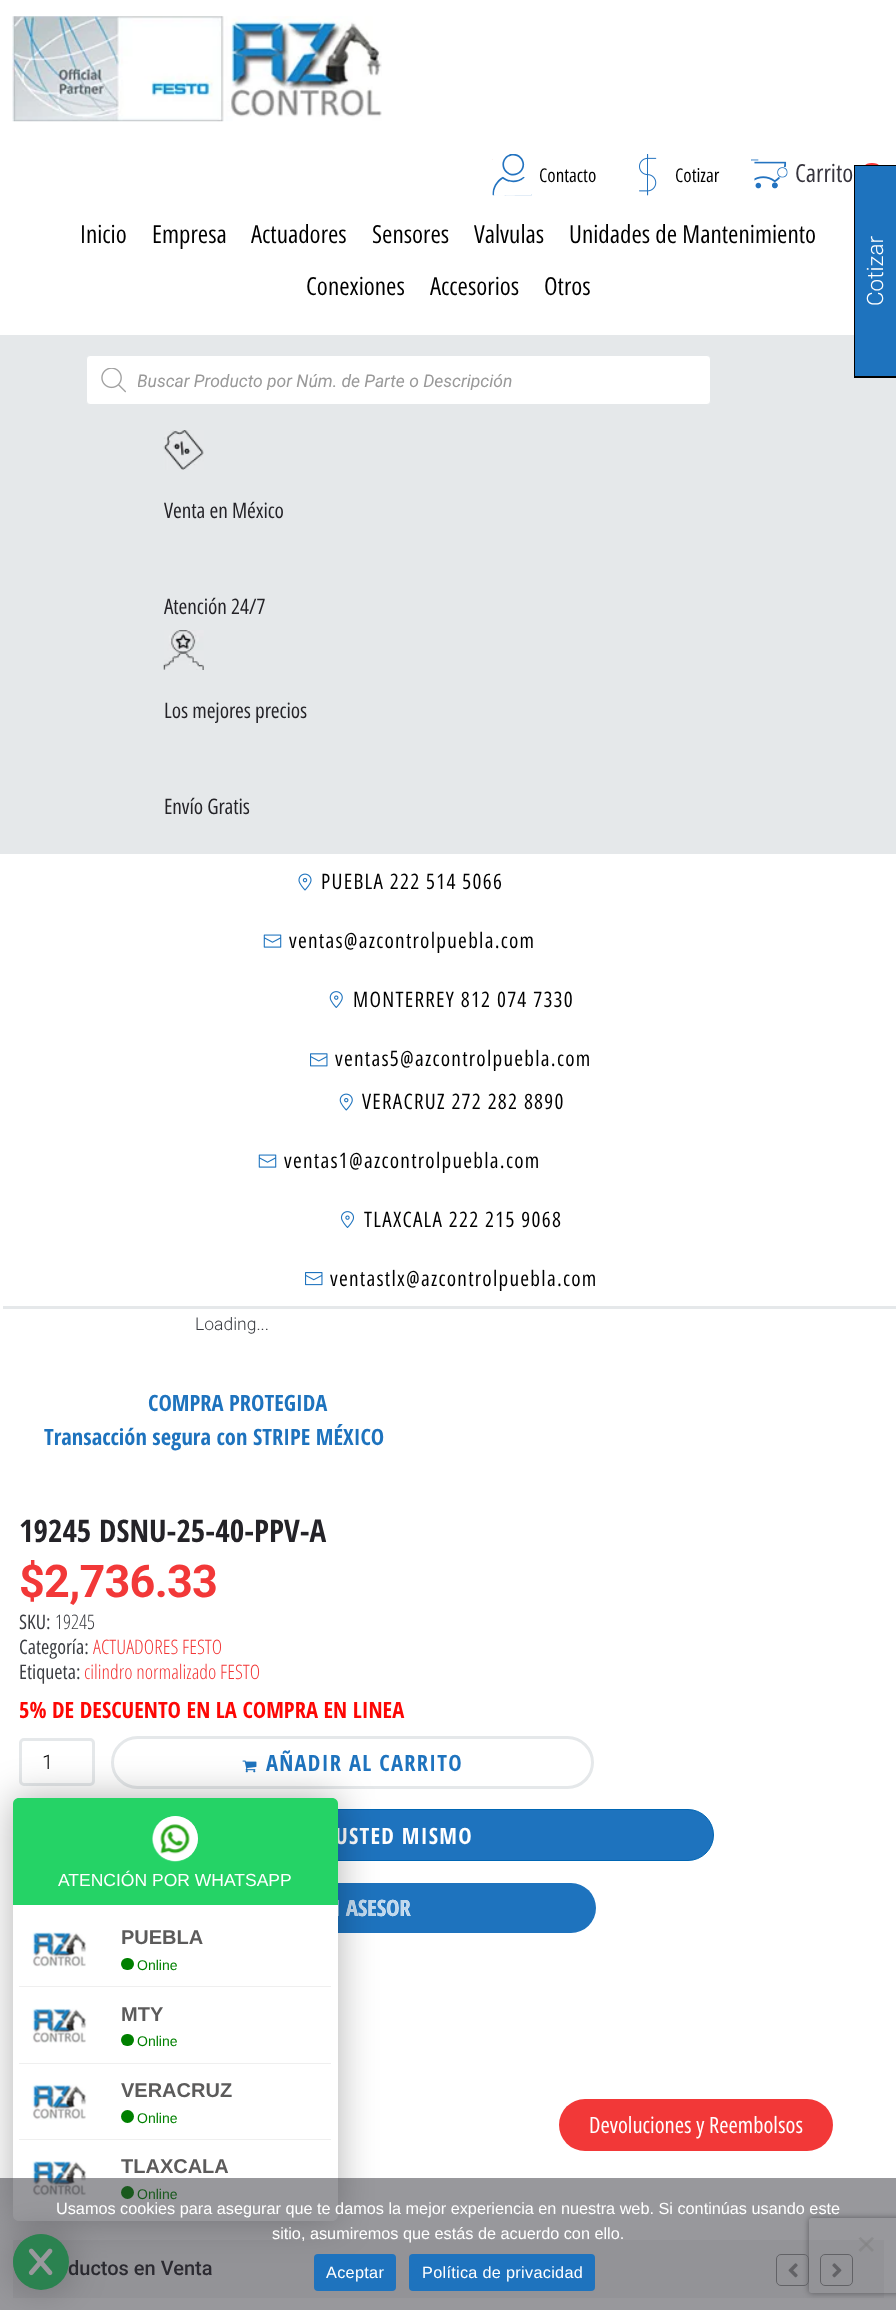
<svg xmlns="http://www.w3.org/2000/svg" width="896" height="2310">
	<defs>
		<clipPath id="clip1"><rect x="138" y="370" width="553" height="20" /></clipPath>
		<clipPath id="clip2"><path d="M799 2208H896V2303H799ZM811.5 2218H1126.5C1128 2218 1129 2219 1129 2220.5V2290.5C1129 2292 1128 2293 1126.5 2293H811.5C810 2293 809 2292 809 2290.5V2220.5C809 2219 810 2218 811.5 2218Z" clip-rule="evenodd" /></clipPath>
		<clipPath id="clip3"><rect x="121" y="2150" width="200" height="34" /></clipPath>
	</defs>
	<rect width="100%" height="100%" fill="#FFFFFF" />
	<image x="12" y="16" width="370" height="106" href="assets/img1.png" />
	<image x="492" y="154" width="40" height="42" href="assets/img2.png" />
	<text x="539" y="182" font-family="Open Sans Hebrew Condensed" font-size="19" fill="#000000">Contacto</text>
	<image x="639" y="154" width="18" height="42" href="assets/img3.png" />
	<text x="675" y="182" font-family="Open Sans Hebrew Condensed" font-size="19" fill="#000000">Cotizar</text>
	<image x="751" y="159" width="37" height="30" href="assets/img4.png" />
	<text x="795" y="182" font-family="Open Sans Hebrew Condensed" font-size="25" fill="#36343D">Carrito</text>
	<rect x="860" y="163" width="24" height="23" rx="11.5" fill="#FA3A3A" />
	<g font-family="Open Sans Hebrew Condensed" font-size="25" fill="#000000">
		<text x="80" y="243">Inicio</text>
		<text x="152" y="243">Empresa</text>
		<text x="251" y="243">Actuadores</text>
		<text x="372" y="243">Sensores</text>
		<text x="474" y="243">Valvulas</text>
		<text x="569" y="243">Unidades de Mantenimiento</text>
		<text x="306" y="295">Conexiones</text>
		<text x="430" y="295">Accesorios</text>
		<text x="544" y="295">Otros</text>
	</g>
	<rect x="0" y="335" width="896" height="519" fill="#E5E8EA" />
	<rect x="86.5" y="355.5" width="624" height="49" rx="3.5" fill="#FFFFFF" stroke="#E5E8EA" />
	<image x="101" y="368" width="25" height="25" href="assets/img5.png" />
	<g clip-path="url(#clip1)">
		<text x="137" y="387" font-family="Roboto" font-size="17.5" font-style="italic" fill="#999999">Buscar Producto por Núm. de Parte o Descripción</text>
	</g>
	<image x="163" y="430" width="41" height="40" href="assets/img6.png" />
	<g font-family="Open Sans Hebrew Condensed" font-size="21.25" letter-spacing="-0.1" fill="#242328">
		<text x="164" y="518">Venta en México</text>
		<text x="164" y="614">Atención 24/7</text>
	</g>
	<image x="163" y="630" width="41" height="40" href="assets/img7.png" />
	<g font-family="Open Sans Hebrew Condensed" font-size="21.25" letter-spacing="-0.1" fill="#242328">
		<text x="164" y="718">Los mejores precios</text>
		<text x="164" y="814">Envío Gratis</text>
	</g>
	<image x="298" y="873" width="14" height="18" href="assets/img8.png" />
	<text x="321" y="889" font-family="Open Sans Hebrew Condensed" font-size="21.25" letter-spacing="1.25" fill="#000000">PUEBLA 222 514 5066</text>
	<image x="263" y="934" width="19" height="14" href="assets/img9.png" />
	<text x="289" y="948" font-family="Open Sans Hebrew Condensed" font-size="21.25" letter-spacing="1.25" fill="#000000">ventas@azcontrolpuebla.com</text>
	<image x="329" y="991" width="14" height="17" href="assets/img10.png" />
	<text x="353" y="1007" font-family="Open Sans Hebrew Condensed" font-size="21.25" letter-spacing="1.25" fill="#000000">MONTERREY 812 074 7330</text>
	<image x="310" y="1053" width="18" height="14" href="assets/img11.png" />
	<text x="335" y="1066" font-family="Open Sans Hebrew Condensed" font-size="21.25" letter-spacing="1.25" fill="#000000">ventas5@azcontrolpuebla.com</text>
	<image x="339" y="1093" width="14" height="18" href="assets/img12.png" />
	<text x="362" y="1109" font-family="Open Sans Hebrew Condensed" font-size="21.25" letter-spacing="1.25" fill="#000000">VERACRUZ 272 282 8890</text>
	<image x="258" y="1154" width="19" height="14" href="assets/img9.png" />
	<text x="284" y="1168" font-family="Open Sans Hebrew Condensed" font-size="21.25" letter-spacing="1.25" fill="#000000">ventas1@azcontrolpuebla.com</text>
	<image x="340" y="1211" width="15" height="17" href="assets/img13.png" />
	<text x="364" y="1227" font-family="Open Sans Hebrew Condensed" font-size="21.25" letter-spacing="1.25" fill="#000000">TLAXCALA 222 215 9068</text>
	<image x="305" y="1272" width="18" height="14" href="assets/img14.png" />
	<text x="330" y="1286" font-family="Open Sans Hebrew Condensed" font-size="21.25" letter-spacing="1.25" fill="#000000">ventastlx@azcontrolpuebla.com</text>
	<rect x="3" y="1306" width="893" height="3" fill="#E5E8EA" />
	<text x="195" y="1330" font-family="Roboto" font-size="17.5" font-weight="300" fill="#3B3D42">Loading...</text>
	<g font-family="Open Sans Hebrew Condensed" font-size="22.5" font-weight="700" fill="#1E73BE">
		<text x="148" y="1411">COMPRA PROTEGIDA</text>
		<text x="44" y="1445">Transacción segura con STRIPE MÉXICO</text>
	</g>
	<text x="19" y="1542" font-family="Open Sans Hebrew Condensed" font-size="31.25" font-weight="700" fill="#242328">19245 DSNU-25-40-PPV-A</text>
	<text x="19" y="1597" font-family="Roboto" font-size="45" font-weight="700" letter-spacing="-0.75" fill="#F23838">$2,736.33</text>
	<text x="19" y="1629" font-family="Open Sans Hebrew Condensed" font-size="20" fill="#3B3D42">SKU:</text>
	<text x="55" y="1629" font-family="Open Sans Hebrew Condensed" font-size="20" font-weight="300" fill="#3B3D42">19245</text>
	<text x="19" y="1654" font-family="Open Sans Hebrew Condensed" font-size="20" fill="#3B3D42">Categoría:</text>
	<text x="93" y="1654" font-family="Open Sans Hebrew Condensed" font-size="20" font-weight="300" fill="#F23838">ACTUADORES FESTO</text>
	<text x="19" y="1679" font-family="Open Sans Hebrew Condensed" font-size="20" fill="#3B3D42">Etiqueta:</text>
	<text x="84" y="1679" font-family="Open Sans Hebrew Condensed" font-size="20" font-weight="300" fill="#F23838">cilindro normalizado FESTO</text>
	<text x="19" y="1718" font-family="Open Sans Hebrew Condensed" font-size="22.5" font-weight="700" fill="#FD0704">5% DE DESCUENTO EN LA COMPRA EN LINEA</text>
	<rect x="20.5" y="1739.5" width="73" height="45" rx="3.5" fill="none" stroke="#E5E8EA" stroke-width="3" />
	<text x="42" y="1769" font-family="Roboto" font-size="20" font-weight="300" fill="#000000">1</text>
	<rect x="112.5" y="1737.5" width="480" height="50" rx="25" fill="none" stroke="#E5E8EA" stroke-width="3" />
	<image x="242" y="1760" width="15" height="13" href="assets/img15.png" />
	<text x="266" y="1771" font-family="Open Sans Hebrew Condensed" font-size="22.5" font-weight="700" letter-spacing="1.25" fill="#1E73BE">AÑADIR AL CARRITO</text>
	<rect x="19.5" y="1809.5" width="694" height="51" rx="25.5" fill="#1E73BE" stroke="#0066B4" />
	<text x="335" y="1844" font-family="Open Sans Hebrew Condensed" font-size="22.5" font-weight="700" letter-spacing="1.25" fill="#FFFFFF">USTED MISMO</text>
	<rect x="19" y="1883" width="577" height="50" rx="25" fill="#1E73BE" />
	<text x="346" y="1916" font-family="Open Sans Hebrew Condensed" font-size="22.5" font-weight="700" fill="#FFFFFF">ASESOR</text>
	<text x="326" y="1916" font-family="Open Sans Hebrew Condensed" font-size="22.5" font-weight="700" fill="#C0D8ED">N ASESOR</text>
	<rect x="559" y="2099" width="274" height="52" rx="26" fill="#F23838" />
	<text x="589" y="2133" font-family="Open Sans Hebrew Condensed" font-size="22.5" fill="#FFFFFF">Devoluciones y Reembolsos</text>
	<rect x="13" y="2240" width="871" height="58" fill="#F4F4F4" />
	<text x="68" y="2275" font-family="Roboto" font-size="20" font-weight="500" fill="#242328">ductos en Venta</text>
	<g clip-path="url(#clip2)">
		<rect x="809" y="2218" width="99" height="75" rx="2.5" fill="#808080" filter="blur(3px)" />
	</g>
	<rect x="776.5" y="2254.5" width="32" height="31" rx="4.5" fill="none" stroke="#939393" />
	<image x="788" y="2263" width="10" height="15" href="assets/img16.png" />
	<rect x="820.5" y="2254.5" width="32" height="31" rx="4.5" fill="none" stroke="#939393" />
	<image x="832" y="2263" width="10" height="15" href="assets/img17.png" />
	<rect x="855" y="166" width="41" height="210" fill="#1E73BE" />
	<rect x="854" y="165" width="1" height="213" fill="#000000" />
	<rect x="854" y="165" width="42" height="1" fill="#000000" />
	<rect x="854" y="376" width="42" height="2" fill="#000000" />
	<text x="883" y="306" transform="rotate(-90 883 306)" font-family="Roboto" font-size="22.5" font-weight="300" fill="#FFFFFF">Cotizar</text>
	<rect x="13" y="1798" width="325" height="423" rx="6" fill="#000000" fill-opacity="0.3" filter="blur(19px)" />
	<path d="M19 1798H332C335.5 1798 338 1800.5 338 1804V1905H13V1804C13 1800.5 15.5 1798 19 1798Z" fill="#25D366" />
	<circle cx="175.5" cy="1838.5" r="22.5" fill="#FFFFFF" />
	<image x="152" y="1816" width="46" height="46" href="assets/img18.png" />
	<text x="58" y="1886" font-family="Liberation Sans" font-size="17.5" fill="#FFFFFF">ATENCIÓN POR WHATSAPP</text>
	<path d="M13 1905H338V2215C338 2218.5 335.5 2221 332 2221H19C15.5 2221 13 2218.5 13 2215Z" fill="#FFFFFF" />
	<rect x="19" y="1986" width="312" height="1" fill="#EFEFEF" />
	<image x="32" y="1932" width="55" height="35" href="assets/img19.png" />
	<text x="121" y="1944" font-family="Liberation Sans" font-size="20" font-weight="700" fill="#5C5B5B">PUEBLA</text>
	<rect x="121" y="1958" width="13" height="12" rx="6" fill="#008000" />
	<text x="137" y="1970" font-family="Liberation Sans" font-size="14" fill="#008000">Online</text>
	<rect x="19" y="2063" width="312" height="1" fill="#EFEFEF" />
	<image x="32" y="2008" width="55" height="35" href="assets/img20.png" />
	<text x="121" y="2021" font-family="Liberation Sans" font-size="20" font-weight="700" fill="#5C5B5B">MTY</text>
	<rect x="121" y="2034" width="13" height="12" rx="6" fill="#008000" />
	<text x="137" y="2046" font-family="Liberation Sans" font-size="14" fill="#008000">Online</text>
	<rect x="19" y="2139" width="312" height="1" fill="#EFEFEF" />
	<image x="32" y="2084" width="55" height="36" href="assets/img21.png" />
	<text x="121" y="2097" font-family="Liberation Sans" font-size="20" font-weight="700" fill="#5C5B5B">VERACRUZ</text>
	<circle cx="127.5" cy="2116.5" r="6.5" fill="#008000" />
	<text x="137" y="2123" font-family="Liberation Sans" font-size="14" fill="#008000">Online</text>
	<image x="32" y="2161" width="55" height="35" href="assets/img22.png" />
	<g clip-path="url(#clip3)">
		<text x="121" y="2173" font-family="Liberation Sans" font-size="20" font-weight="700" fill="#5C5B5B">TLAXCALA</text>
	</g>
	<circle cx="127.5" cy="2192.5" r="6.5" fill="#008000" />
	<text x="137" y="2199" font-family="Liberation Sans" font-size="14" fill="#008000">Online</text>
	<rect x="13" y="2234" width="56" height="56" rx="28" fill="#000000" fill-opacity="0.3" filter="blur(19px)" />
	<circle cx="41" cy="2262" r="28" fill="#25D366" />
	<image x="13" y="2234" width="40" height="52" href="assets/img23.png" />
	<rect x="0" y="2178" width="896" height="132" fill="#32323A" fill-opacity="0.5" />
	<g font-family="Liberation Sans" font-size="16.25" fill="#FFFFFF">
		<text x="56" y="2214">Usamos cookies para asegurar que te damos la mejor experiencia en nuestra web. Si continúas usando este</text>
		<text x="272" y="2239">sitio, asumiremos que estás de acuerdo con ello.</text>
	</g>
	<path d="M872 2237L874 2238.5L860.5 2252L858.5 2250Z" fill="#808080" fill-opacity="0.5" />
	<path d="M858.5 2238.5L860.5 2237L874 2250L872 2252Z" fill="#808080" fill-opacity="0.5" />
	<rect x="314" y="2254" width="82" height="37" rx="4" fill="#1E73BE" />
	<text x="326" y="2278" font-family="Liberation Sans" font-size="16.25" letter-spacing="0.3" fill="#FFFFFF">Aceptar</text>
	<rect x="409" y="2254" width="186" height="37" rx="4" fill="#1E73BE" />
	<text x="422" y="2278" font-family="Liberation Sans" font-size="16.25" letter-spacing="0.3" fill="#FFFFFF">Política de privacidad</text>
</svg>
